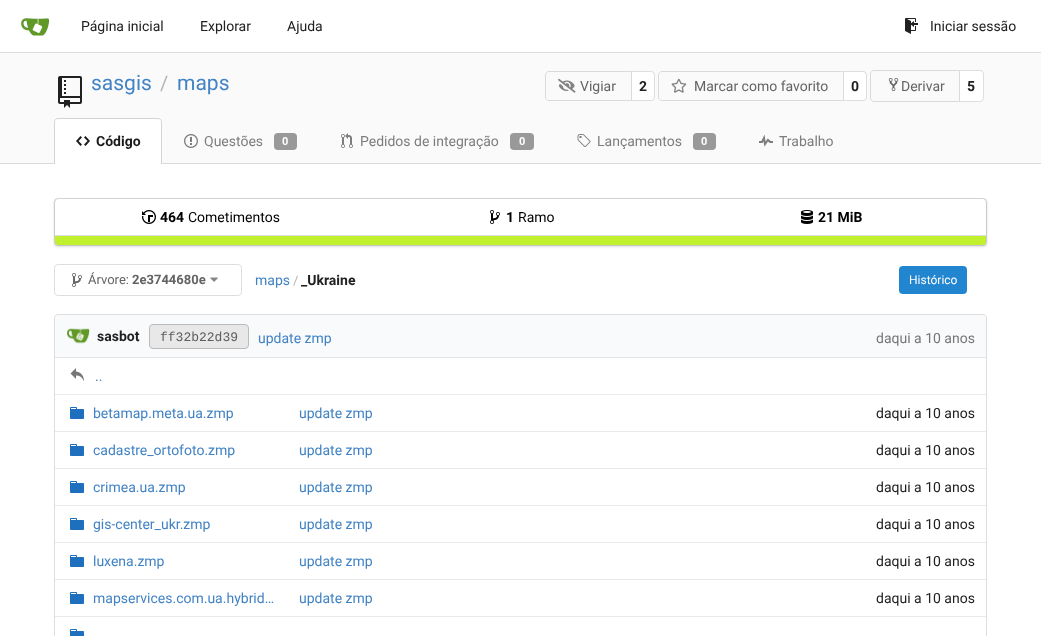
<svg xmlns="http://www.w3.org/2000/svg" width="1041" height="636">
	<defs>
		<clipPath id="clip1"><rect x="55" y="199" width="931" height="46" rx="3" /></clipPath>
	</defs>
	<rect width="100%" height="100%" fill="#FFFFFF" />
	<rect x="0" y="52" width="1041" height="1" fill="#DDDDDD" />
	<image x="21" y="18" width="28" height="18" href="assets/img1.png" />
	<g font-family="Roboto" font-size="14" fill="#212121">
		<text x="81" y="31">Página inicial</text>
		<text x="200" y="31">Explorar</text>
		<text x="287" y="31">Ajuda</text>
	</g>
	<image x="905" y="18" width="13" height="16" href="assets/img2.png" />
	<text x="930" y="31" font-family="Roboto" font-size="14" fill="#212121">Iniciar sessão</text>
	<rect x="0" y="53" width="1041" height="110" fill="#FAFAFA" />
	<image x="58" y="76" width="24" height="32" href="assets/img3.png" />
	<text x="91" y="90" font-family="Roboto" font-size="21" fill="#4183C4">sasgis</text>
	<text x="160" y="90" font-family="Roboto" font-size="20" fill="#B4B4B4">/</text>
	<text x="177" y="90" font-family="Roboto" font-size="21" fill="#4183C4">maps</text>
	<path d="M549 71.5H631.5V100.5H549C547 100.5 545.5 99 545.5 97V75C545.5 73 547 71.5 549 71.5Z" fill="none" stroke="#DADADA" />
	<image x="558" y="78" width="18" height="15" href="assets/img4.png" />
	<text x="580" y="91" font-family="Roboto" font-size="14" fill="#646464">Vigiar</text>
	<path d="M632 71H651C653 71 655 73 655 75V97C655 99 653 101 651 101H632Z" fill="#FFFFFF" />
	<path d="M632 71H651C653 71 655 73 655 75V97C655 99 653 101 651 101H632ZM632 72H651C652.5 72 654 73.5 654 75V97C654 98.5 652.5 100 651 100H632Z" fill="#DEDEDE" fill-rule="evenodd" />
	<text x="639" y="91" font-family="Roboto" font-size="14" font-weight="700" fill="#212121">2</text>
	<path d="M662 71.5H843.5V100.5H662C660 100.5 658.5 99 658.5 97V75C658.5 73 660 71.5 662 71.5Z" fill="none" stroke="#DADADA" />
	<image x="671" y="78" width="16" height="15" href="assets/img5.png" />
	<text x="694" y="91" font-family="Roboto" font-size="14" fill="#646464">Marcar como favorito</text>
	<path d="M844 71H863C865 71 867 73 867 75V97C867 99 865 101 863 101H844Z" fill="#FFFFFF" />
	<path d="M844 71H863C865 71 867 73 867 75V97C867 99 865 101 863 101H844ZM844 72H863C864.5 72 866 73.5 866 75V97C866 98.5 864.5 100 863 100H844Z" fill="#DEDEDE" fill-rule="evenodd" />
	<text x="851" y="91" font-family="Roboto" font-size="14" font-weight="700" fill="#212121">0</text>
	<path d="M874 70.5H959.5V101.5H874C872 101.5 870.5 100 870.5 98V74C870.5 72 872 70.5 874 70.5Z" fill="none" stroke="#DADADA" />
	<image x="888" y="78" width="11" height="13" href="assets/img6.png" />
	<text x="901" y="91" font-family="Roboto" font-size="14" fill="#646464">Derivar</text>
	<path d="M960 70H980C982 70 984 72 984 74V98C984 100 982 102 980 102H960Z" fill="#FFFFFF" />
	<path d="M960 70H980C982 70 984 72 984 74V98C984 100 982 102 980 102H960ZM960 71H980C981.5 71 983 72.5 983 74V98C983 99.5 981.5 101 980 101H960Z" fill="#DEDEDE" fill-rule="evenodd" />
	<text x="967" y="91" font-family="Roboto" font-size="14" font-weight="700" fill="#212121">5</text>
	<rect x="0" y="163" width="1041" height="1" fill="#DADADA" />
	<path d="M58 118H158C160 118 162 120 162 122V164H54V122C54 120 56 118 58 118Z" fill="#FFFFFF" />
	<path d="M58 118H158C160 118 162 120 162 122V164H54V122C54 120 56 118 58 118ZM58 119H158C160 119 161 120 161 122V164H55V122C55 120 56 119 58 119Z" fill="#D4D4D5" fill-rule="evenodd" />
	<image x="76" y="136" width="14" height="10" href="assets/img7.png" />
	<text x="96" y="146" font-family="Roboto" font-size="14" font-weight="700" fill="#1A1A1A">Código</text>
	<image x="184" y="134" width="14" height="14" href="assets/img8.png" />
	<text x="204" y="146" font-family="Roboto" font-size="14" fill="#7D7D7D">Questões</text>
	<rect x="274" y="133" width="23" height="17" rx="4" fill="#999999" />
	<text x="282" y="145" font-family="Roboto" font-size="11" font-weight="700" fill="#FFFFFF">0</text>
	<image x="341" y="133" width="12" height="15" href="assets/img9.png" />
	<text x="360" y="146" font-family="Roboto" font-size="14" fill="#7D7D7D">Pedidos de integração</text>
	<rect x="510" y="133" width="24" height="17" rx="4" fill="#999999" />
	<text x="519" y="145" font-family="Roboto" font-size="11" font-weight="700" fill="#FFFFFF">0</text>
	<image x="577" y="134" width="14" height="13" href="assets/img10.png" />
	<text x="597" y="146" font-family="Roboto" font-size="14" fill="#7D7D7D">Lançamentos</text>
	<rect x="693" y="133" width="23" height="17" rx="4" fill="#999999" />
	<text x="701" y="145" font-family="Roboto" font-size="11" font-weight="700" fill="#FFFFFF">0</text>
	<image x="759" y="134" width="14" height="13" href="assets/img11.png" />
	<text x="779" y="146" font-family="Roboto" font-size="14" fill="#7D7D7D">Trabalho</text>
	<rect x="54" y="199" width="933" height="48" rx="4" fill="#222426" fill-opacity="0.15" filter="blur(1px)" />
	<rect x="54.5" y="198.5" width="932" height="47" rx="3.5" fill="none" stroke="#222426" stroke-opacity="0.15" />
	<g clip-path="url(#clip1)">
		<path d="M59 199H982C984 199 986 201 986 203V235H55V203C55 201 57 199 59 199Z" fill="#FFFFFF" />
	</g>
	<image x="142" y="210" width="14" height="14" href="assets/img12.png" />
	<text x="160" y="222" font-family="Roboto" font-size="14" font-weight="700" fill="#000000">464</text>
	<text x="188" y="222" font-family="Roboto" font-size="14" fill="#000000">Cometimentos</text>
	<image x="490" y="210" width="10" height="14" href="assets/img13.png" />
	<text x="506" y="222" font-family="Roboto" font-size="14" font-weight="700" fill="#000000">1</text>
	<text x="518" y="222" font-family="Roboto" font-size="14" fill="#000000">Ramo</text>
	<image x="801" y="210" width="12" height="14" href="assets/img14.png" />
	<text x="818" y="222" font-family="Roboto" font-size="14" font-weight="700" fill="#000000">21 MiB</text>
	<path d="M55 236H986V242C986 243.5 984.5 245 983 245H58C56.5 245 55 243.5 55 242Z" fill="#C1F12E" />
	<rect x="54.5" y="264.5" width="187" height="31" rx="3.5" fill="none" stroke="#DEDEDE" />
	<image x="72" y="273" width="10" height="14" href="assets/img15.png" />
	<text x="88" y="284" font-family="Roboto" font-size="13" fill="#646464">Árvore:</text>
	<text x="132" y="284" font-family="Roboto" font-size="13" font-weight="700" fill="#646464">2e3744680e</text>
	<image x="210" y="277" width="8" height="5" href="assets/img16.png" />
	<text x="255" y="285" font-family="Roboto" font-size="14" fill="#4183C4">maps</text>
	<text x="293" y="285" font-family="Roboto" font-size="13" fill="#B4B4B4">/</text>
	<text x="301" y="285" font-family="Roboto" font-size="14" font-weight="700" fill="#212121">_Ukraine</text>
	<rect x="899" y="266" width="68" height="28" rx="4" fill="#2185D0" />
	<text x="909" y="284" font-family="Roboto" font-size="12" fill="#FFFFFF">Histórico</text>
	<rect x="54.5" y="314.5" width="932" height="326" rx="3.5" fill="none" stroke="#DEDEDE" />
	<path d="M59 315H811V358H55V319C55 317 57 315 59 315Z" fill="#F9FAFB" />
	<rect x="55" y="357" width="756" height="1" fill="#E3E5E6" />
	<image x="67" y="328" width="23" height="16" href="assets/img17.png" />
	<text x="97" y="341" font-family="Roboto" font-size="14" font-weight="700" fill="#212121">sasbot</text>
	<rect x="149.5" y="324.5" width="99" height="24" rx="3.5" fill="#E8E8E8" stroke="#BBBBBB" />
	<text x="160" y="341" font-family="Liberation Mono" font-size="13" fill="#5D5D5D">ff32b22d39</text>
	<text x="258" y="343" font-family="Roboto" font-size="14" fill="#4183C4">update zmp</text>
	<path d="M811 315H982C984 315 986 317 986 319V358H811Z" fill="#F9FAFB" />
	<rect x="811" y="357" width="175" height="1" fill="#E3E5E6" />
	<text x="876" y="343" font-family="Roboto" font-size="14" fill="#767676">daqui a 10 anos</text>
	<image x="70" y="368" width="14" height="14" href="assets/img18.png" />
	<text x="95" y="381" font-family="Roboto" font-size="14" fill="#4183C4">..</text>
	<rect x="55" y="394" width="931" height="1" fill="#E9E9E9" />
	<image x="70" y="407" width="14" height="12" href="assets/img19.png" />
	<g font-family="Roboto" font-size="14" fill="#4183C4">
		<text x="93" y="418">betamap.meta.ua.zmp</text>
		<text x="299" y="418">update zmp</text>
	</g>
	<text x="876" y="418" font-family="Roboto" font-size="14" fill="#212121">daqui a 10 anos</text>
	<rect x="55" y="431" width="931" height="1" fill="#E9E9E9" />
	<image x="70" y="444" width="14" height="12" href="assets/img19.png" />
	<g font-family="Roboto" font-size="14" fill="#4183C4">
		<text x="93" y="455">cadastre_ortofoto.zmp</text>
		<text x="299" y="455">update zmp</text>
	</g>
	<text x="876" y="455" font-family="Roboto" font-size="14" fill="#212121">daqui a 10 anos</text>
	<rect x="55" y="468" width="931" height="1" fill="#E9E9E9" />
	<image x="70" y="481" width="14" height="12" href="assets/img19.png" />
	<g font-family="Roboto" font-size="14" fill="#4183C4">
		<text x="93" y="492">crimea.ua.zmp</text>
		<text x="299" y="492">update zmp</text>
	</g>
	<text x="876" y="492" font-family="Roboto" font-size="14" fill="#212121">daqui a 10 anos</text>
	<rect x="55" y="505" width="931" height="1" fill="#E9E9E9" />
	<image x="70" y="518" width="14" height="12" href="assets/img19.png" />
	<g font-family="Roboto" font-size="14" fill="#4183C4">
		<text x="93" y="529">gis-center_ukr.zmp</text>
		<text x="299" y="529">update zmp</text>
	</g>
	<text x="876" y="529" font-family="Roboto" font-size="14" fill="#212121">daqui a 10 anos</text>
	<rect x="55" y="542" width="931" height="1" fill="#E9E9E9" />
	<image x="70" y="555" width="14" height="12" href="assets/img19.png" />
	<g font-family="Roboto" font-size="14" fill="#4183C4">
		<text x="93" y="566">luxena.zmp</text>
		<text x="299" y="566">update zmp</text>
	</g>
	<text x="876" y="566" font-family="Roboto" font-size="14" fill="#212121">daqui a 10 anos</text>
	<rect x="55" y="579" width="931" height="1" fill="#E9E9E9" />
	<image x="70" y="592" width="14" height="12" href="assets/img19.png" />
	<g font-family="Roboto" font-size="14" fill="#4183C4">
		<text x="93" y="603">mapservices.com.ua.hybrid…</text>
		<text x="299" y="603">update zmp</text>
	</g>
	<text x="876" y="603" font-family="Roboto" font-size="14" fill="#212121">daqui a 10 anos</text>
	<rect x="55" y="616" width="931" height="1" fill="#E9E9E9" />
	<image x="70" y="629" width="14" height="7" href="assets/img20.png" />
</svg>
